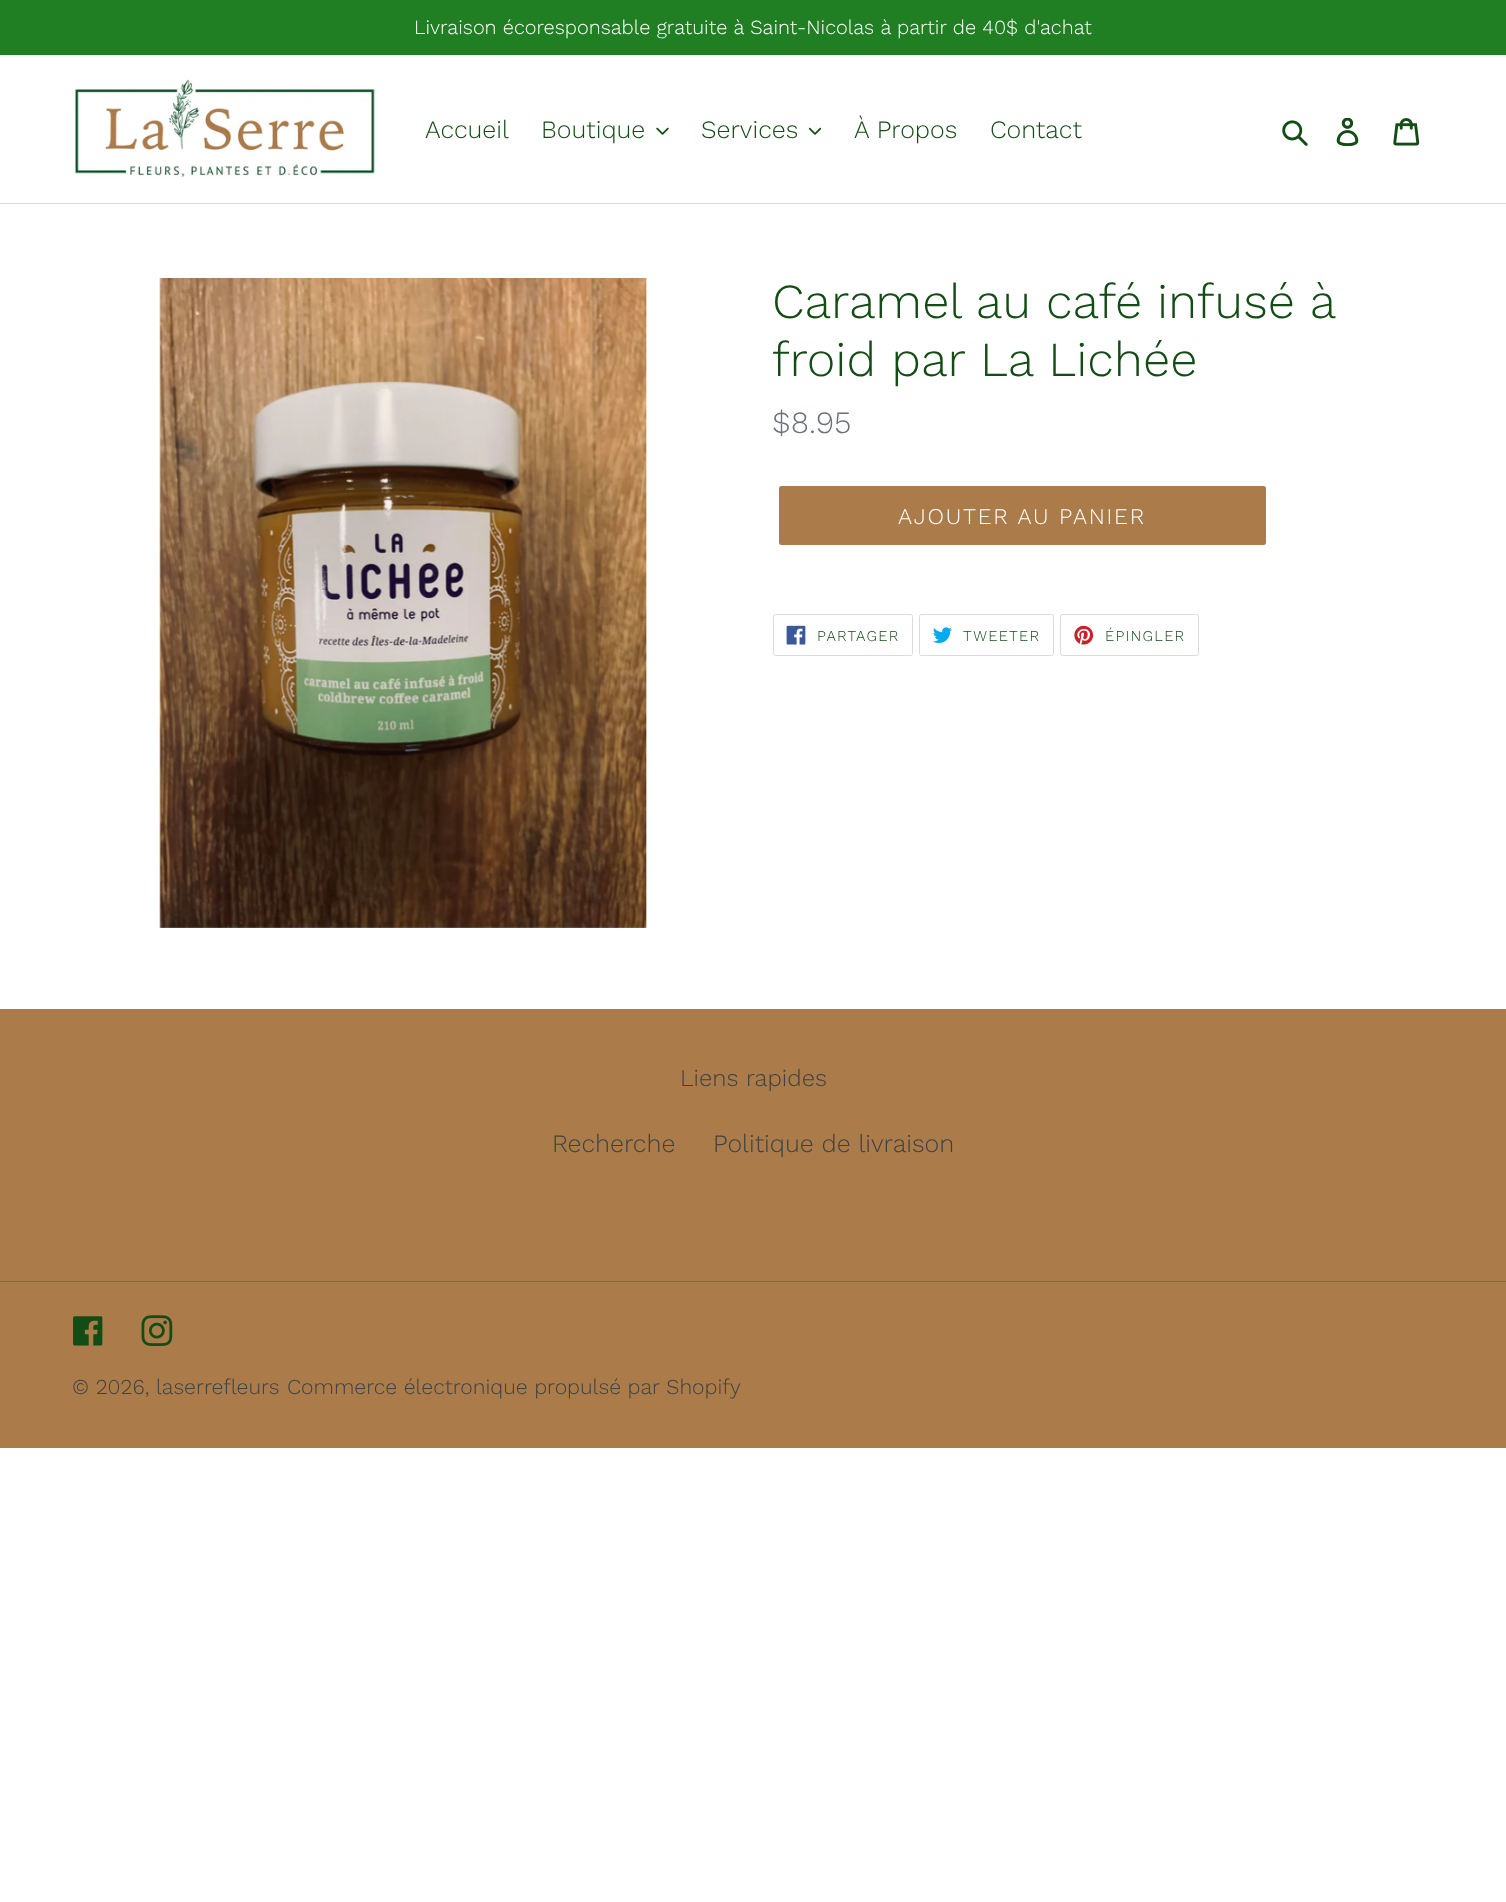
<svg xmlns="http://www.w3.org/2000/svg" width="1506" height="1902">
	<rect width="100%" height="100%" fill="#FFFFFF" />
	<rect x="0" y="0" width="1506" height="55" fill="#217F23" />
	<text x="414" y="34" font-family="Work Sans" font-size="20" font-weight="300" fill="#FFFFFF">Livraison écoresponsable gratuite à Saint-Nicolas à partir de 40$ d'achat</text>
	<rect x="0" y="203" width="1506" height="1" fill="#DBDBDB" />
	<image x="74" y="79" width="301" height="99" href="assets/img1.png" />
	<g font-family="Work Sans" font-size="25" font-weight="300" fill="#144C15">
		<text x="425" y="138">Accueil</text>
		<text x="541" y="138">Boutique</text>
	</g>
	<image x="656" y="127" width="13" height="8" href="assets/img2.png" />
	<text x="701" y="138" font-family="Work Sans" font-size="25" font-weight="300" fill="#144C15">Services</text>
	<image x="809" y="127" width="12" height="8" href="assets/img3.png" />
	<g font-family="Work Sans" font-size="25" font-weight="300" fill="#144C15">
		<text x="854" y="138">À Propos</text>
		<text x="990" y="138">Contact</text>
	</g>
	<image x="1282" y="120" width="26" height="26" href="assets/img4.png" />
	<image x="1336" y="118" width="23" height="28" href="assets/img5.png" />
	<image x="1393" y="118" width="27" height="28" href="assets/img6.png" />
	<image x="159" y="278" width="488" height="650" href="assets/img7.png" />
	<g font-family="Work Sans" font-size="48.75" font-weight="300" fill="#144C15">
		<text x="772" y="318" word-spacing="-0.5">Caramel au café infusé à</text>
		<text x="772" y="376">froid par La Lichée</text>
	</g>
	<text x="772" y="433" font-family="Work Sans" font-size="31" font-weight="300" fill="#69727B">$8.95</text>
	<rect x="779" y="486" width="487" height="59" rx="2.5" fill="#AB7C49" />
	<text x="898" y="524" font-family="Work Sans" font-size="22.5" font-weight="300" letter-spacing="1.75" fill="#FFFFFF">AJOUTER AU PANIER</text>
	<rect x="773.5" y="614.5" width="139" height="41" rx="2" fill="none" stroke="#DBDBDB" />
	<image x="786" y="625" width="20" height="20" href="assets/img8.png" />
	<text x="817" y="641" font-family="Work Sans" font-size="15" font-weight="300" letter-spacing="1.25" fill="#144C15">PARTAGER</text>
	<rect x="919.5" y="614.5" width="134" height="41" rx="2" fill="none" stroke="#DBDBDB" />
	<image x="933" y="627" width="19" height="16" href="assets/img9.png" />
	<text x="963" y="641" font-family="Work Sans" font-size="15" font-weight="300" letter-spacing="1.25" fill="#144C15">TWEETER</text>
	<rect x="1060.5" y="614.5" width="138" height="41" rx="2" fill="none" stroke="#DBDBDB" />
	<image x="1074" y="625" width="20" height="20" href="assets/img10.png" />
	<text x="1105" y="641" font-family="Work Sans" font-size="15" font-weight="300" letter-spacing="1.25" fill="#144C15">ÉPINGLER</text>
	<rect x="0" y="1009" width="1506" height="439" fill="#AB7C49" />
	<text x="680" y="1086" font-family="Work Sans" font-size="23.75" font-weight="300" fill="#3D4246">Liens rapides</text>
	<g font-family="Work Sans" font-size="25" font-weight="300" fill="#3D4246">
		<text x="552" y="1152">Recherche</text>
		<text x="713" y="1152">Politique de livraison</text>
	</g>
	<rect x="0" y="1281" width="1506" height="1" fill="#87623A" />
	<image x="73" y="1316" width="30" height="30" href="assets/img11.png" />
	<image x="141" y="1315" width="32" height="31" href="assets/img12.png" />
	<g font-family="Work Sans" font-size="21.25" font-weight="300" fill="#3D4246">
		<text x="72" y="1394">© 2026, laserrefleurs</text>
		<text x="287" y="1394">Commerce électronique propulsé par Shopify</text>
	</g>
</svg>
